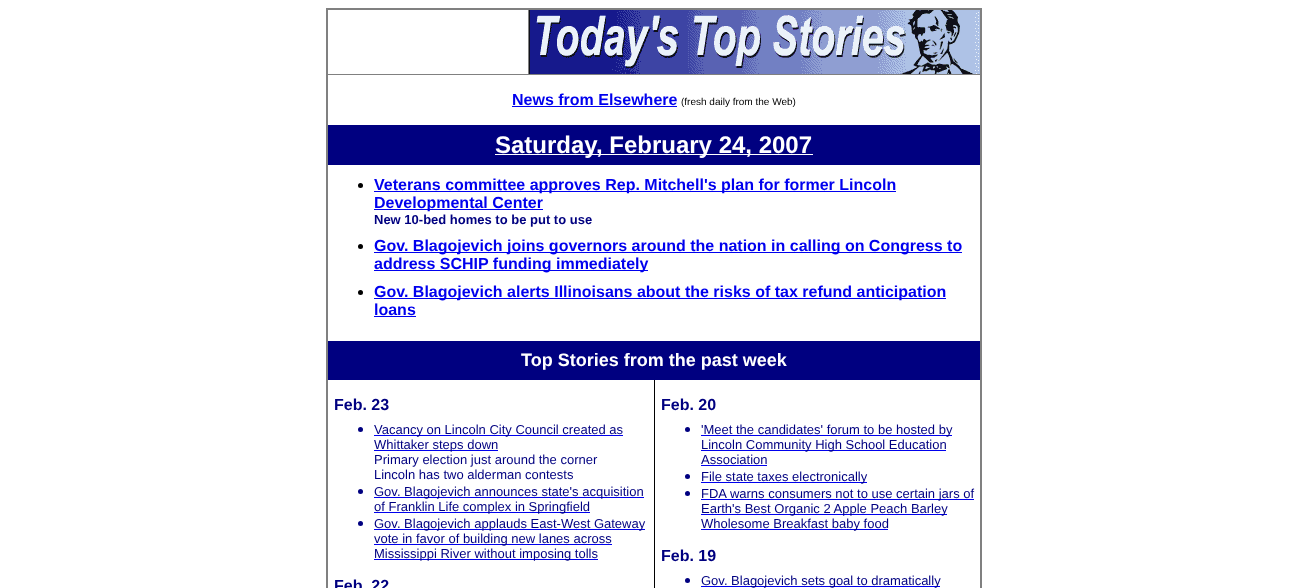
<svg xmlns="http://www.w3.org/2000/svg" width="1308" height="588">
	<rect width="100%" height="100%" fill="#FFFFFF" />
	<rect x="327" y="74" width="655" height="1" fill="#808080" />
	<rect x="528" y="9" width="1" height="66" fill="#808080" />
	<rect x="326" y="8" width="656" height="2" fill="#808080" />
	<rect x="980" y="8" width="2" height="580" fill="#808080" />
	<rect x="326" y="8" width="2" height="580" fill="#808080" />
	<image x="529" y="10" width="451" height="64" href="assets/img1.png" />
	<text x="512" y="105" font-family="Liberation Sans" font-size="16" font-weight="700" fill="#0000EE">News from Elsewhere</text>
	<rect x="512" y="106" width="165" height="1" fill="#0000EE" />
	<text x="681" y="105" font-family="Liberation Sans" font-size="10" fill="#000000">(fresh daily from the Web)</text>
	<rect x="328" y="125" width="652" height="40" fill="#000080" />
	<rect x="495" y="154" width="318" height="1" fill="#FFFFFF" />
	<text x="495" y="153" font-family="Liberation Sans" font-size="24" font-weight="700" fill="#FFFFFF">Saturday, February 24, 2007</text>
	<circle cx="360.5" cy="185.5" r="2.5" fill="#000000" />
	<rect x="374" y="191" width="522" height="1" fill="#0000EE" />
	<text x="374" y="190" font-family="Liberation Sans" font-size="16" font-weight="700" fill="#0000EE">Veterans committee approves Rep. Mitchell's plan for former Lincoln</text>
	<rect x="374" y="209" width="169" height="1" fill="#0000EE" />
	<text x="374" y="208" font-family="Liberation Sans" font-size="16" font-weight="700" fill="#0000EE">Developmental Center</text>
	<text x="374" y="224" font-family="Liberation Sans" font-size="13" font-weight="700" fill="#000080">New 10-bed homes to be put to use</text>
	<circle cx="360.5" cy="246.5" r="2.5" fill="#000000" />
	<rect x="374" y="252" width="588" height="1" fill="#0000EE" />
	<text x="374" y="251" font-family="Liberation Sans" font-size="16" font-weight="700" fill="#0000EE">Gov. Blagojevich joins governors around the nation in calling on Congress to</text>
	<rect x="374" y="270" width="274" height="1" fill="#0000EE" />
	<text x="374" y="269" font-family="Liberation Sans" font-size="16" font-weight="700" fill="#0000EE">address SCHIP funding immediately</text>
	<circle cx="360.5" cy="292.5" r="2.5" fill="#000000" />
	<rect x="374" y="298" width="572" height="1" fill="#0000EE" />
	<g font-family="Liberation Sans" font-size="16" font-weight="700" fill="#0000EE">
		<text x="374" y="297">Gov. Blagojevich alerts Illinoisans about the risks of tax refund anticipation</text>
		<text x="374" y="315">loans</text>
	</g>
	<rect x="374" y="316" width="42" height="1" fill="#0000EE" />
	<rect x="328" y="341" width="652" height="39" fill="#000080" />
	<text x="521" y="366" font-family="Liberation Sans" font-size="18" font-weight="700" fill="#FFFFFF">Top Stories from the past week</text>
	<rect x="654" y="380" width="1" height="208" fill="#000000" />
	<text x="334" y="410" font-family="Liberation Sans" font-size="16" font-weight="700" fill="#000080">Feb. 23</text>
	<circle cx="360.5" cy="429.5" r="2.5" fill="#000080" />
	<rect x="374" y="435" width="249" height="1" fill="#0000EE" />
	<text x="374" y="434" font-family="Liberation Sans" font-size="13" fill="#000080">Vacancy on Lincoln City Council created as</text>
	<rect x="374" y="450" width="124" height="1" fill="#0000EE" />
	<g font-family="Liberation Sans" font-size="13" fill="#000080">
		<text x="374" y="449">Whittaker steps down</text>
		<text x="374" y="464">Primary election just around the corner</text>
		<text x="374" y="479">Lincoln has two alderman contests</text>
	</g>
	<circle cx="360.5" cy="491.5" r="2.5" fill="#000080" />
	<rect x="374" y="497" width="270" height="1" fill="#0000EE" />
	<text x="374" y="496" font-family="Liberation Sans" font-size="13" fill="#000080">Gov. Blagojevich announces state's acquisition</text>
	<rect x="374" y="512" width="216" height="1" fill="#0000EE" />
	<text x="374" y="511" font-family="Liberation Sans" font-size="13" fill="#000080">of Franklin Life complex in Springfield</text>
	<circle cx="360.5" cy="523.5" r="2.5" fill="#000080" />
	<rect x="374" y="529" width="271" height="1" fill="#0000EE" />
	<text x="374" y="528" font-family="Liberation Sans" font-size="13" fill="#000080">Gov. Blagojevich applauds East-West Gateway</text>
	<rect x="374" y="544" width="238" height="1" fill="#0000EE" />
	<text x="374" y="543" font-family="Liberation Sans" font-size="13" fill="#000080">vote in favor of building new lanes across</text>
	<rect x="374" y="559" width="224" height="1" fill="#0000EE" />
	<text x="374" y="558" font-family="Liberation Sans" font-size="13" fill="#000080">Mississippi River without imposing tolls</text>
	<g font-family="Liberation Sans" font-size="16" font-weight="700" fill="#000080">
		<text x="334" y="591">Feb. 22</text>
		<text x="661" y="410">Feb. 20</text>
	</g>
	<circle cx="687.5" cy="429.5" r="2.5" fill="#000080" />
	<rect x="701" y="435" width="251" height="1" fill="#0000EE" />
	<text x="701" y="434" font-family="Liberation Sans" font-size="13" fill="#000080">'Meet the candidates' forum to be hosted by</text>
	<rect x="701" y="450" width="245" height="1" fill="#0000EE" />
	<g font-family="Liberation Sans" font-size="13" fill="#000080">
		<text x="701" y="449">Lincoln Community High School Education</text>
		<text x="701" y="464">Association</text>
	</g>
	<rect x="701" y="465" width="66" height="1" fill="#0000EE" />
	<circle cx="687.5" cy="476.5" r="2.5" fill="#000080" />
	<rect x="701" y="482" width="166" height="1" fill="#0000EE" />
	<text x="701" y="481" font-family="Liberation Sans" font-size="13" fill="#000080">File state taxes electronically</text>
	<circle cx="687.5" cy="493.5" r="2.5" fill="#000080" />
	<rect x="701" y="499" width="273" height="1" fill="#0000EE" />
	<text x="701" y="498" font-family="Liberation Sans" font-size="13" fill="#000080">FDA warns consumers not to use certain jars of</text>
	<rect x="701" y="514" width="246" height="1" fill="#0000EE" />
	<text x="701" y="513" font-family="Liberation Sans" font-size="13" fill="#000080">Earth's Best Organic 2 Apple Peach Barley</text>
	<rect x="701" y="529" width="187" height="1" fill="#0000EE" />
	<text x="701" y="528" font-family="Liberation Sans" font-size="13" fill="#000080">Wholesome Breakfast baby food</text>
	<text x="661" y="561" font-family="Liberation Sans" font-size="16" font-weight="700" fill="#000080">Feb. 19</text>
	<circle cx="687.5" cy="580.5" r="2.5" fill="#000080" />
	<rect x="701" y="586" width="239" height="1" fill="#0000EE" />
	<text x="701" y="585" font-family="Liberation Sans" font-size="13" fill="#000080">Gov. Blagojevich sets goal to dramatically</text>
</svg>
